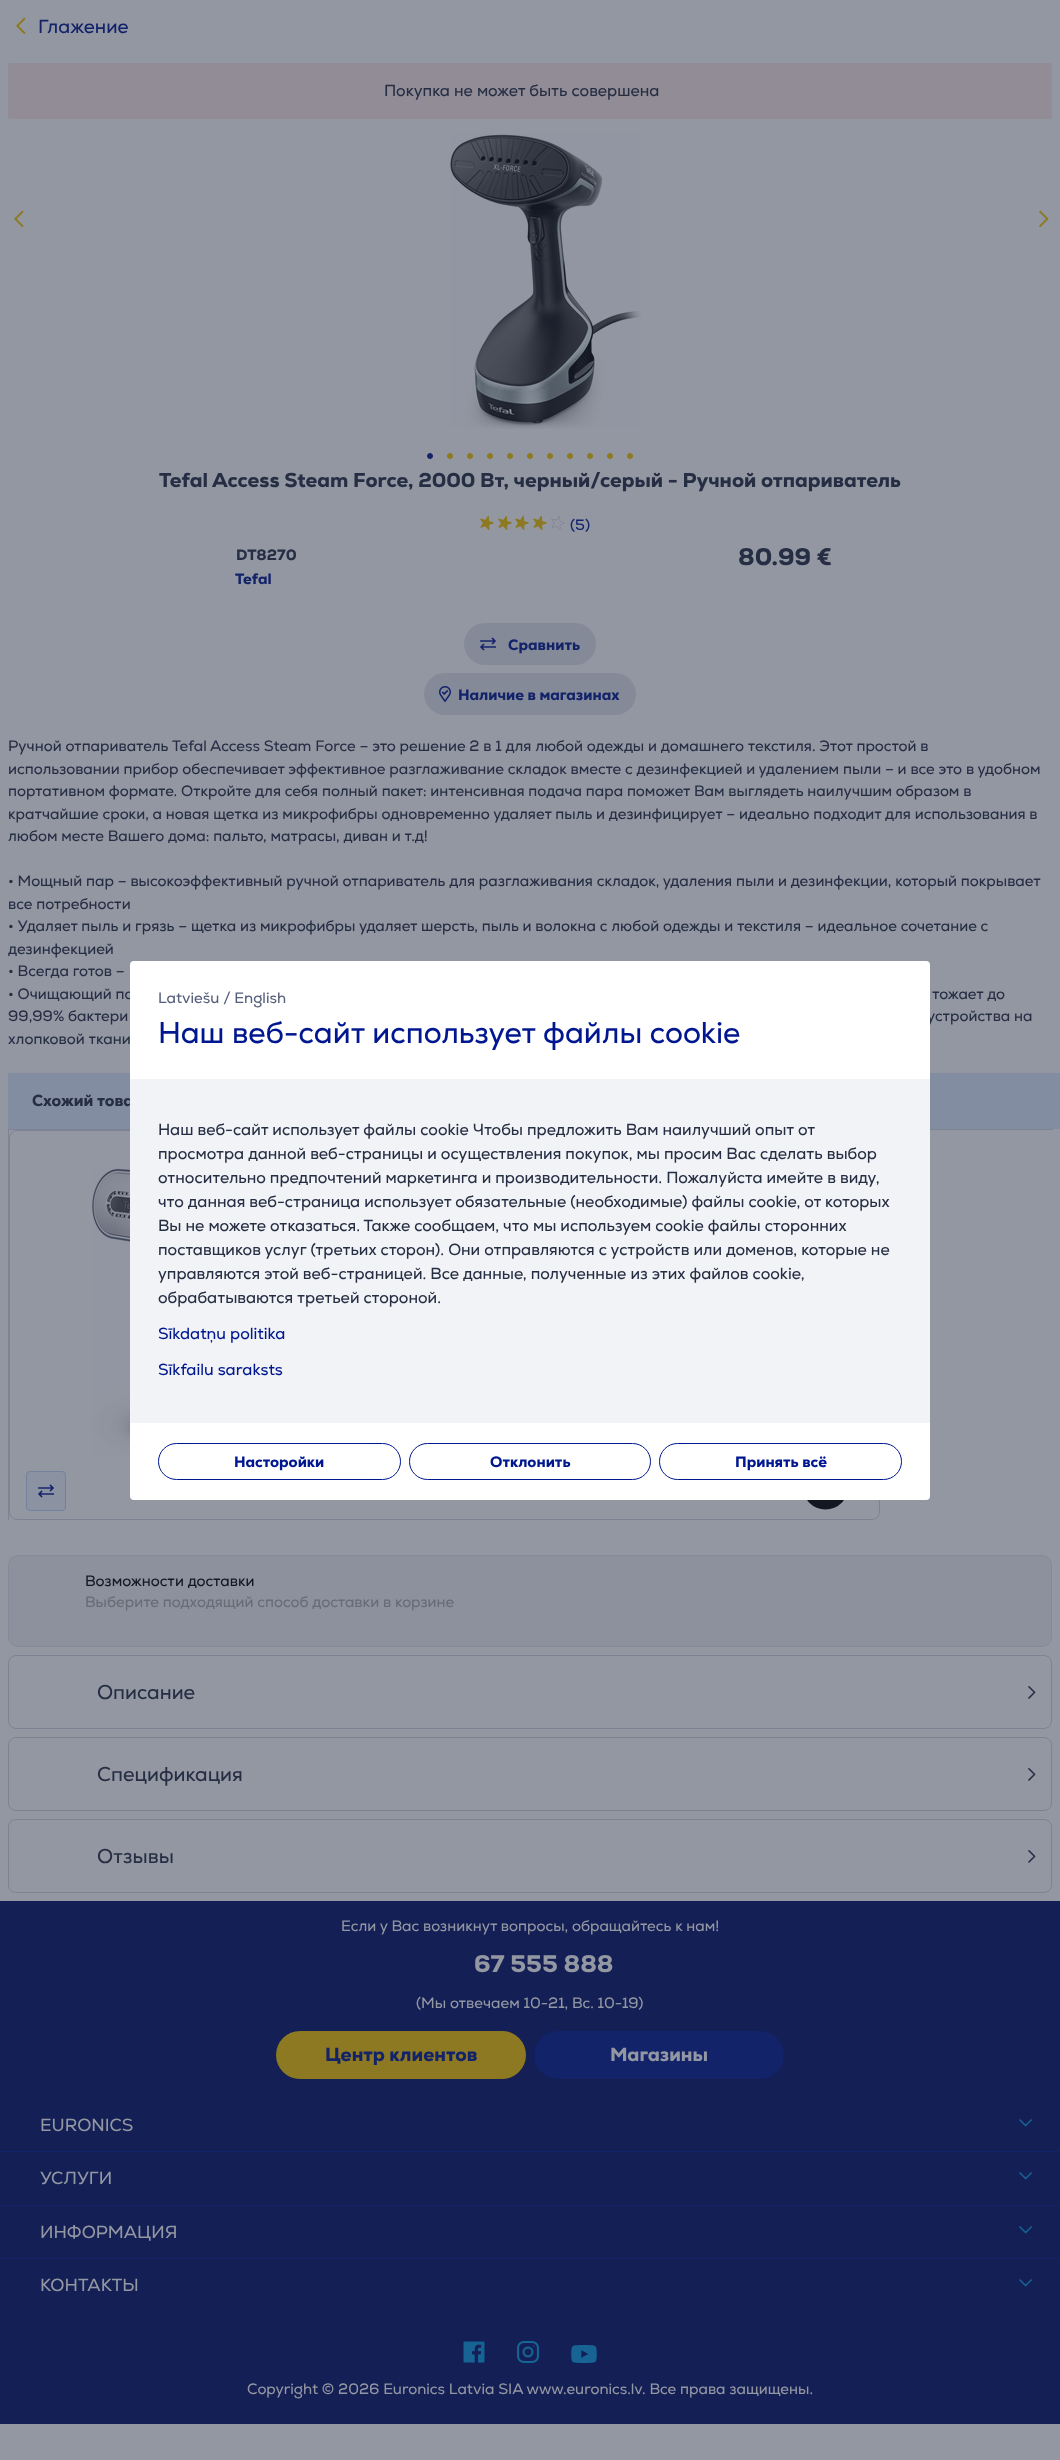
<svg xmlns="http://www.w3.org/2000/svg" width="1060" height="2460">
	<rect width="100%" height="100%" fill="#9397A2" />
	<image x="16" y="17" width="10" height="18" href="assets/img1.png" />
	<text x="38" y="33" font-family="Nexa" font-size="19" fill="#13236A">Глажение</text>
	<rect x="8" y="63" width="1044" height="56" rx="3" fill="#918C95" />
	<text x="384" y="96" font-family="Nexa" font-size="16" fill="#262E44">Покупка не может быть совершена</text>
	<image x="450" y="134" width="191" height="295" href="assets/img2.png" />
	<circle cx="430" cy="456" r="2.5" fill="#13236A" stroke="#13236A" />
	<circle cx="450" cy="456" r="2.5" fill="#8C7922" stroke="#8C7922" />
	<circle cx="470" cy="456" r="2.5" fill="#8C7922" stroke="#8C7922" />
	<circle cx="490" cy="456" r="2.5" fill="#8C7922" stroke="#8C7922" />
	<circle cx="510" cy="456" r="2.5" fill="#8C7922" stroke="#8C7922" />
	<circle cx="530" cy="456" r="2.5" fill="#8C7922" stroke="#8C7922" />
	<circle cx="550" cy="456" r="2.5" fill="#8C7922" stroke="#8C7922" />
	<circle cx="570" cy="456" r="2.5" fill="#8C7922" stroke="#8C7922" />
	<circle cx="590" cy="456" r="2.5" fill="#8C7922" stroke="#8C7922" />
	<circle cx="610" cy="456" r="2.5" fill="#8C7922" stroke="#8C7922" />
	<circle cx="630" cy="456" r="2.5" fill="#8C7922" stroke="#8C7922" />
	<image x="14" y="210" width="10" height="18" href="assets/img1.png" />
	<image x="1039" y="210" width="10" height="18" href="assets/img3.png" />
	<text x="159" y="487" font-family="Nexa" font-size="20" font-weight="900" fill="#262E44">Tefal Access Steam Force, 2000 Вт, черный/серый - Ручной отпариватель</text>
	<image x="480" y="516" width="14" height="14" href="assets/img4.png" />
	<image x="498" y="516" width="14" height="14" href="assets/img4.png" />
	<image x="515" y="516" width="14" height="14" href="assets/img4.png" />
	<image x="533" y="516" width="14" height="14" href="assets/img4.png" />
	<image x="551" y="516" width="14" height="14" href="assets/img5.png" />
	<text x="570" y="530" font-family="Nexa" font-size="15" fill="#13236A">(5)</text>
	<text x="236" y="560" font-family="Nexa" font-size="15" font-weight="900" fill="#262E44">DT8270</text>
	<text x="235" y="584" font-family="Nexa" font-size="15" font-weight="900" fill="#13236A">Tefal</text>
	<text x="738" y="565" font-family="Nexa" font-size="24" font-weight="900" fill="#262E44">80.99 €</text>
	<rect x="464" y="623" width="132" height="42" rx="21" fill="#858A98" />
	<image x="480" y="637" width="16" height="14" href="assets/img6.png" />
	<text x="508" y="650" font-family="Nexa" font-size="15" font-weight="900" fill="#13236A">Сравнить</text>
	<rect x="424" y="673" width="212" height="42" rx="21" fill="#858A98" />
	<image x="439" y="686" width="12" height="16" href="assets/img7.png" />
	<text x="458" y="700" font-family="Nexa" font-size="15" font-weight="900" fill="#13236A">Наличие в магазинах</text>
	<g font-family="Nexa" font-size="15" fill="#262E44">
		<text x="8" y="751">Ручной отпариватель Tefal Access Steam Force – это решение 2 в 1 для любой одежды и домашнего текстиля. Этот простой в</text>
		<text x="8" y="774">использовании прибор обеспечивает эффективное разглаживание складок вместе с дезинфекцией и удалением пыли – и все это в удобном</text>
		<text x="8" y="796">портативном формате. Откройте для себя полный пакет: интенсивная подача пара поможет Вам выглядеть наилучшим образом в</text>
		<text x="8" y="819">кратчайшие сроки, а новая щетка из микрофибры одновременно удаляет пыль и дезинфицирует – идеально подходит для использования в</text>
		<text x="8" y="841">любом месте Вашего дома: пальто, матрасы, диван и т.д!</text>
		<text x="8" y="886">• Мощный пар – высокоэффективный ручной отпариватель для разглаживания складок, удаления пыли и дезинфекции, который покрывает</text>
		<text x="8" y="909">все потребности</text>
		<text x="8" y="931">• Удаляет пыль и грязь – щетка из микрофибры удаляет шерсть, пыль и волокна с любой одежды и текстиля – идеальное сочетание с</text>
		<text x="8" y="954">дезинфекцией</text>
		<text x="8" y="976">• Всегда готов –</text>
		<text x="8" y="999">• Очищающий па</text>
		<text x="932" y="999">тожает до</text>
		<text x="8" y="1021">99,99% бактери</text>
		<text x="927" y="1021">устройства на</text>
		<text x="8" y="1044">хлопковой ткани</text>
	</g>
	<rect x="8" y="1073" width="1052" height="56" fill="#838DA2" />
	<text x="32" y="1106" font-family="Nexa" font-size="16" font-weight="900" fill="#262E44">Схожий това</text>
	<rect x="8" y="1129" width="1045" height="1" fill="#7E8393" />
	<rect x="8" y="1129" width="1" height="391" fill="#7E8393" />
	<rect x="9.5" y="1130.5" width="870" height="389" rx="7.5" fill="none" stroke="#7E8393" />
	<image x="92" y="1168" width="38" height="289" href="assets/img8.png" />
	<rect x="26.5" y="1471.5" width="39" height="39" rx="3.5" fill="#8B93A2" stroke="#72839D" />
	<image x="38" y="1484" width="16" height="14" href="assets/img9.png" />
	<circle cx="825.5" cy="1486.5" r="23" fill="#131722" />
	<rect x="8.5" y="1555.5" width="1043" height="91" rx="9.5" fill="#8C919D" stroke="#858A98" />
	<text x="85" y="1586" font-family="Nexa" font-size="15" fill="#131722">Возможности доставки</text>
	<text x="85" y="1607" font-family="Nexa" font-size="15" fill="#686C77">Выберите подходящий способ доставки в корзине</text>
	<rect x="8.5" y="1655.5" width="1043" height="73" rx="7.5" fill="none" stroke="#7E8393" />
	<text x="97" y="1699" font-family="Nexa" font-size="20" fill="#262E44">Описание</text>
	<image x="1028" y="1686" width="8" height="13" href="assets/img10.png" />
	<rect x="8.5" y="1737.5" width="1043" height="73" rx="7.5" fill="none" stroke="#7E8393" />
	<text x="97" y="1781" font-family="Nexa" font-size="20" fill="#262E44">Спецификация</text>
	<image x="1028" y="1768" width="8" height="13" href="assets/img10.png" />
	<rect x="8.5" y="1819.5" width="1043" height="73" rx="7.5" fill="none" stroke="#7E8393" />
	<text x="97" y="1863" font-family="Nexa" font-size="20" fill="#262E44">Отзывы</text>
	<image x="1028" y="1850" width="8" height="13" href="assets/img10.png" />
	<rect x="130" y="961" width="800" height="539" rx="4" fill="#FFFFFF" />
	<text x="158" y="1003" font-family="Nexa" font-size="15" fill="#555E7A">Latviešu / English</text>
	<text x="158" y="1043" font-family="Nexa" font-size="30" fill="#00178F">Наш веб-сайт использует файлы cookie</text>
	<rect x="130" y="1079" width="800" height="344" fill="#F1F3F6" />
	<g font-family="Nexa" font-size="16" fill="#262E44">
		<text x="158" y="1135">Наш веб-сайт использует файлы cookie Чтобы предложить Вам наилучший опыт от</text>
		<text x="158" y="1159">просмотра данной веб-страницы и осуществления покупок, мы просим Вас сделать выбор</text>
		<text x="158" y="1183">относительно предпочтений маркетинга и производительности. Пожалуйста имейте в виду,</text>
		<text x="158" y="1207">что данная веб-страница использует обязательные (необходимые) файлы cookie, от которых</text>
		<text x="158" y="1231">Вы не можете отказаться. Также сообщаем, что мы используем cookie файлы сторонних</text>
		<text x="158" y="1255">поставщиков услуг (третьих сторон). Они отправляются с устройств или доменов, которые не</text>
		<text x="158" y="1279">управляются этой веб-страницей. Все данные, полученные из этих файлов cookie,</text>
		<text x="158" y="1303">обрабатываются третьей стороной.</text>
	</g>
	<g font-family="Nexa" font-size="16" fill="#00178F">
		<text x="158" y="1339">Sīkdatņu politika</text>
		<text x="158" y="1375">Sīkfailu saraksts</text>
	</g>
	<rect x="158.5" y="1443.5" width="242" height="36" rx="18" fill="none" stroke="#00178F" />
	<text x="234" y="1467" font-family="Nexa" font-size="15" font-weight="900" fill="#00178F">Насторойки</text>
	<rect x="409.5" y="1443.5" width="241" height="36" rx="18" fill="none" stroke="#00178F" />
	<text x="490" y="1467" font-family="Nexa" font-size="15" font-weight="900" fill="#00178F">Отклонить</text>
	<rect x="659.5" y="1443.5" width="242" height="36" rx="18" fill="none" stroke="#00178F" />
	<text x="735" y="1467" font-family="Nexa" font-size="15" font-weight="900" fill="#00178F">Принять всё</text>
	<rect x="0" y="1901" width="1060" height="523" fill="#131F55" />
	<text x="341" y="1931" font-family="Nexa" font-size="15" fill="#9397A2">Если у Вас возникнут вопросы, обращайтесь к нам!</text>
	<text x="474" y="1972" font-family="Nexa" font-size="24" font-weight="900" fill="#9397A2">67 555 888</text>
	<text x="416" y="2008" font-family="Nexa" font-size="15" fill="#9397A2">(Мы отвечаем 10-21, Вс. 10-19)</text>
	<rect x="276" y="2031" width="250" height="48" rx="24" fill="#8C7922" />
	<text x="325" y="2061" font-family="Nexa" font-size="19" font-weight="900" fill="#13236A">Центр клиентов</text>
	<rect x="534" y="2031" width="250" height="48" rx="24" fill="#13236A" />
	<text x="610" y="2061" font-family="Nexa" font-size="19" font-weight="900" fill="#9397A2">Магазины</text>
	<text x="40" y="2131" font-family="Nexa" font-size="17.5" fill="#9397A2">EURONICS</text>
	<image x="1019" y="2119" width="13" height="8" href="assets/img11.png" />
	<rect x="0" y="2151" width="1060" height="1" fill="#13236A" />
	<text x="40" y="2184" font-family="Nexa" font-size="17.5" fill="#9397A2">УСЛУГИ</text>
	<image x="1019" y="2172" width="13" height="8" href="assets/img11.png" />
	<rect x="0" y="2205" width="1060" height="1" fill="#13236A" />
	<text x="40" y="2238" font-family="Nexa" font-size="17.5" fill="#9397A2">ИНФОРМАЦИЯ</text>
	<image x="1019" y="2226" width="13" height="8" href="assets/img11.png" />
	<rect x="0" y="2258" width="1060" height="1" fill="#13236A" />
	<text x="40" y="2291" font-family="Nexa" font-size="17.5" fill="#9397A2">КОНТАКТЫ</text>
	<image x="1019" y="2279" width="13" height="8" href="assets/img11.png" />
	<image x="463" y="2341" width="22" height="22" href="assets/img12.png" />
	<image x="517" y="2341" width="22" height="22" href="assets/img13.png" />
	<image x="571" y="2345" width="26" height="18" href="assets/img14.png" />
	<text x="247" y="2394" font-family="Nexa" font-size="15" fill="#9397A2">Copyright © 2026 Euronics Latvia SIA www.euronics.lv. Все права защищены.</text>
</svg>
